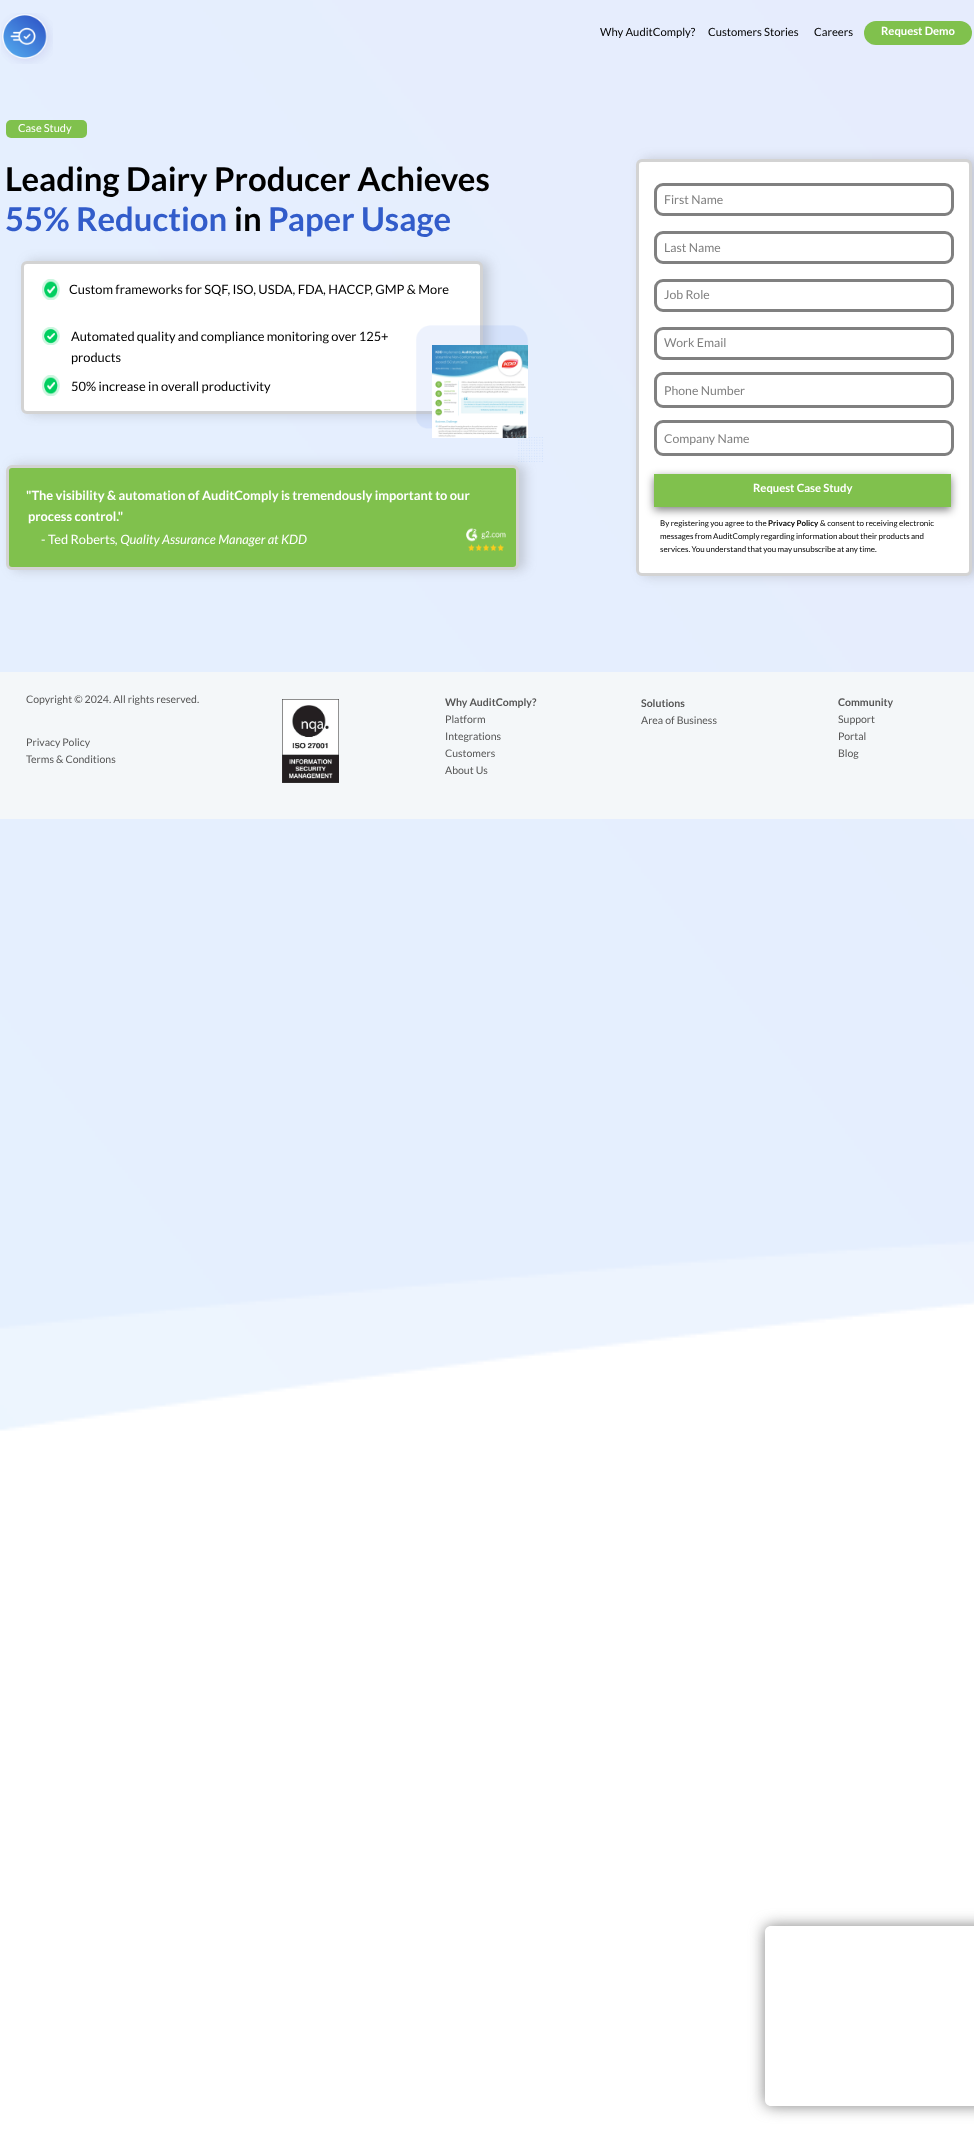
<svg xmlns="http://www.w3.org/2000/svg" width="974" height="2147">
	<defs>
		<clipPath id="clip1"><path d="M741 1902H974V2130H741ZM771 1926H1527C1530.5 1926 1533 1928.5 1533 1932V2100C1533 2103.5 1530.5 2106 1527 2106H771C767.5 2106 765 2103.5 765 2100V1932C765 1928.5 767.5 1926 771 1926Z" clip-rule="evenodd" /></clipPath>
	</defs>
	<rect width="100%" height="100%" fill="#FFFFFF" />
	<image x="0" y="0" width="974" height="1431" href="assets/img1.png" />
	<image x="1" y="13" width="52" height="51" href="assets/img2.png" />
	<g font-family="Lato" font-size="11.25" fill="#000000">
		<text x="600" y="36">Why AuditComply?</text>
		<text x="708" y="36">Customers Stories</text>
		<text x="814" y="36">Careers</text>
	</g>
	<rect x="864" y="21" width="108" height="24" rx="12" fill="#80C14D" />
	<text x="881" y="35" font-family="Lato" font-size="11.25" font-weight="700" fill="#FFFFFF">Request Demo</text>
	<rect x="6" y="120" width="81" height="18" rx="5" fill="#80C14D" />
	<text x="18" y="132" font-family="Lato" font-size="11" fill="#FFFFFF">Case Study</text>
	<text x="5" y="191" font-family="Lato" font-size="32.9" font-weight="700" fill="#000000">Leading Dairy Producer Achieves</text>
	<text x="5" y="231" font-family="Lato" font-size="32.9" font-weight="700" fill="#325CCA">55% Reduction</text>
	<text x="234" y="231" font-family="Lato" font-size="32.9" font-weight="700" fill="#000000">in</text>
	<text x="268" y="231" font-family="Lato" font-size="32.9" font-weight="700" fill="#325CCA">Paper Usage</text>
	<rect x="642" y="159" width="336" height="417" rx="6" fill="#5D5D5D" fill-opacity="0.25" filter="blur(6px)" />
	<rect x="637.5" y="160.5" width="333" height="414" rx="4.5" fill="#FFFFFF" stroke="#D3D3D3" stroke-width="3" />
	<rect x="27" y="261" width="462" height="153" rx="6" fill="#5D5D5D" fill-opacity="0.25" filter="blur(6px)" />
	<rect x="22.5" y="262.5" width="459" height="150" rx="4.5" fill="#FFFFFF" stroke="#D3D3D3" stroke-width="3" />
	<rect x="655.5" y="184.5" width="297" height="30" rx="7.5" fill="none" stroke="#808080" stroke-width="3" />
	<text x="664" y="204" font-family="Lato" font-size="12.25" fill="#808080">First Name</text>
	<rect x="655.5" y="232.5" width="297" height="30" rx="7.5" fill="none" stroke="#808080" stroke-width="3" />
	<text x="664" y="252" font-family="Lato" font-size="12.25" fill="#808080">Last Name</text>
	<rect x="655.5" y="280.5" width="297" height="30" rx="7.5" fill="none" stroke="#808080" stroke-width="3" />
	<text x="664" y="299" font-family="Lato" font-size="12.25" fill="#808080">Job Role</text>
	<rect x="655.5" y="328.5" width="297" height="30" rx="7.5" fill="none" stroke="#808080" stroke-width="3" />
	<text x="664" y="347" font-family="Lato" font-size="12.25" fill="#808080">Work Email</text>
	<rect x="655.5" y="373.5" width="297" height="33" rx="7.5" fill="none" stroke="#808080" stroke-width="3" />
	<text x="664" y="395" font-family="Lato" font-size="12.25" fill="#808080">Phone Number</text>
	<rect x="655.5" y="421.5" width="297" height="33" rx="7.5" fill="none" stroke="#808080" stroke-width="3" />
	<text x="664" y="443" font-family="Lato" font-size="12.25" fill="#808080">Company Name</text>
	<rect x="654" y="477" width="297" height="33" fill="#010101" fill-opacity="0.5" filter="blur(4.5px)" />
	<rect x="654" y="474" width="297" height="33" fill="#80C14D" />
	<text x="753" y="492" font-family="Lato" font-size="11.25" font-weight="700" fill="#FFFFFF">Request Case Study</text>
	<image x="42" y="279" width="18" height="21" href="assets/img3.png" />
	<text x="69" y="294" word-spacing="-0.1" font-family="Lato" font-size="12.85" fill="#000000">Custom frameworks for SQF, ISO, USDA, FDA, HACCP, GMP &amp; More</text>
	<image x="42" y="327" width="18" height="18" href="assets/img4.png" />
	<g font-family="Lato" font-size="12.85" fill="#000000">
		<text x="71" y="341" word-spacing="-0.25">Automated quality and compliance monitoring over 125+</text>
		<text x="71" y="362">products</text>
	</g>
	<rect x="12" y="465" width="513" height="105" rx="6" fill="#5D5D5D" fill-opacity="0.25" filter="blur(6px)" />
	<image x="416" y="325" width="127" height="137" href="assets/img5.png" />
	<image x="42" y="375" width="18" height="21" href="assets/img3.png" />
	<text x="71" y="391" font-family="Lato" font-size="12.85" fill="#000000">50% increase in overall productivity</text>
	<image x="432" y="345" width="96" height="93" href="assets/img6.png" />
	<rect x="7.5" y="466.5" width="510" height="102" rx="4.5" fill="#80C14D" stroke="#D3D3D3" stroke-width="3" />
	<g font-family="Lato" font-size="12.85" font-weight="700" fill="#FFFFFF">
		<text x="26" y="500" word-spacing="-0.1">"The visibility &amp; automation of AuditComply is tremendously important to our</text>
		<text x="28" y="521">process control."</text>
	</g>
	<text x="41" y="544" font-family="Lato" font-size="12.85" fill="#FFFFFF">- Ted Roberts</text>
	<text x="115" y="544" font-family="Lato" font-size="12.85" font-style="italic" fill="#FFFFFF">, Quality Assurance Manager at KDD</text>
	<image x="466" y="528" width="40" height="23" href="assets/img7.png" />
	<text x="660" y="526" font-family="Lato" font-size="8" fill="#000000">By registering you agree to the</text>
	<text x="768" y="526" font-family="Lato" font-size="8" font-weight="700" fill="#000000">Privacy Policy</text>
	<g font-family="Lato" font-size="8" fill="#000000">
		<text x="820" y="526">&amp; consent to receiving electronic</text>
		<text x="660" y="539" word-spacing="-0.25">messages from AuditComply regarding information about their products and</text>
		<text x="660" y="552" word-spacing="-0.25">services. You understand that you may unsubscribe at any time.</text>
	</g>
	<rect x="0" y="672" width="974" height="147" fill="#F4F7F9" />
	<text x="26" y="703" font-family="Lato" font-size="10.5" fill="#565656">Copyright © 2024. All rights reserved.</text>
	<image x="282" y="699" width="57" height="84" href="assets/img8.png" />
	<text x="445" y="706" font-family="Lato" font-size="10.5" font-weight="700" fill="#565656">Why AuditComply?</text>
	<g font-family="Lato" font-size="10.5" fill="#565656">
		<text x="445" y="723">Platform</text>
		<text x="445" y="740">Integrations</text>
		<text x="445" y="757">Customers</text>
		<text x="445" y="774">About Us</text>
	</g>
	<text x="641" y="707" font-family="Lato" font-size="10.5" font-weight="700" fill="#565656">Solutions</text>
	<text x="641" y="724" font-family="Lato" font-size="10.5" fill="#565656">Area of Business</text>
	<text x="838" y="706" font-family="Lato" font-size="10.5" font-weight="700" fill="#565656">Community</text>
	<g font-family="Lato" font-size="10.5" fill="#565656">
		<text x="838" y="723">Support</text>
		<text x="838" y="740">Portal</text>
		<text x="838" y="757">Blog</text>
		<text x="26" y="746">Privacy Policy</text>
		<text x="26" y="763">Terms &amp; Conditions</text>
	</g>
	<g clip-path="url(#clip1)">
		<rect x="765" y="1926" width="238" height="180" rx="6" fill="#808080" filter="blur(7.5px)" />
	</g>
</svg>
